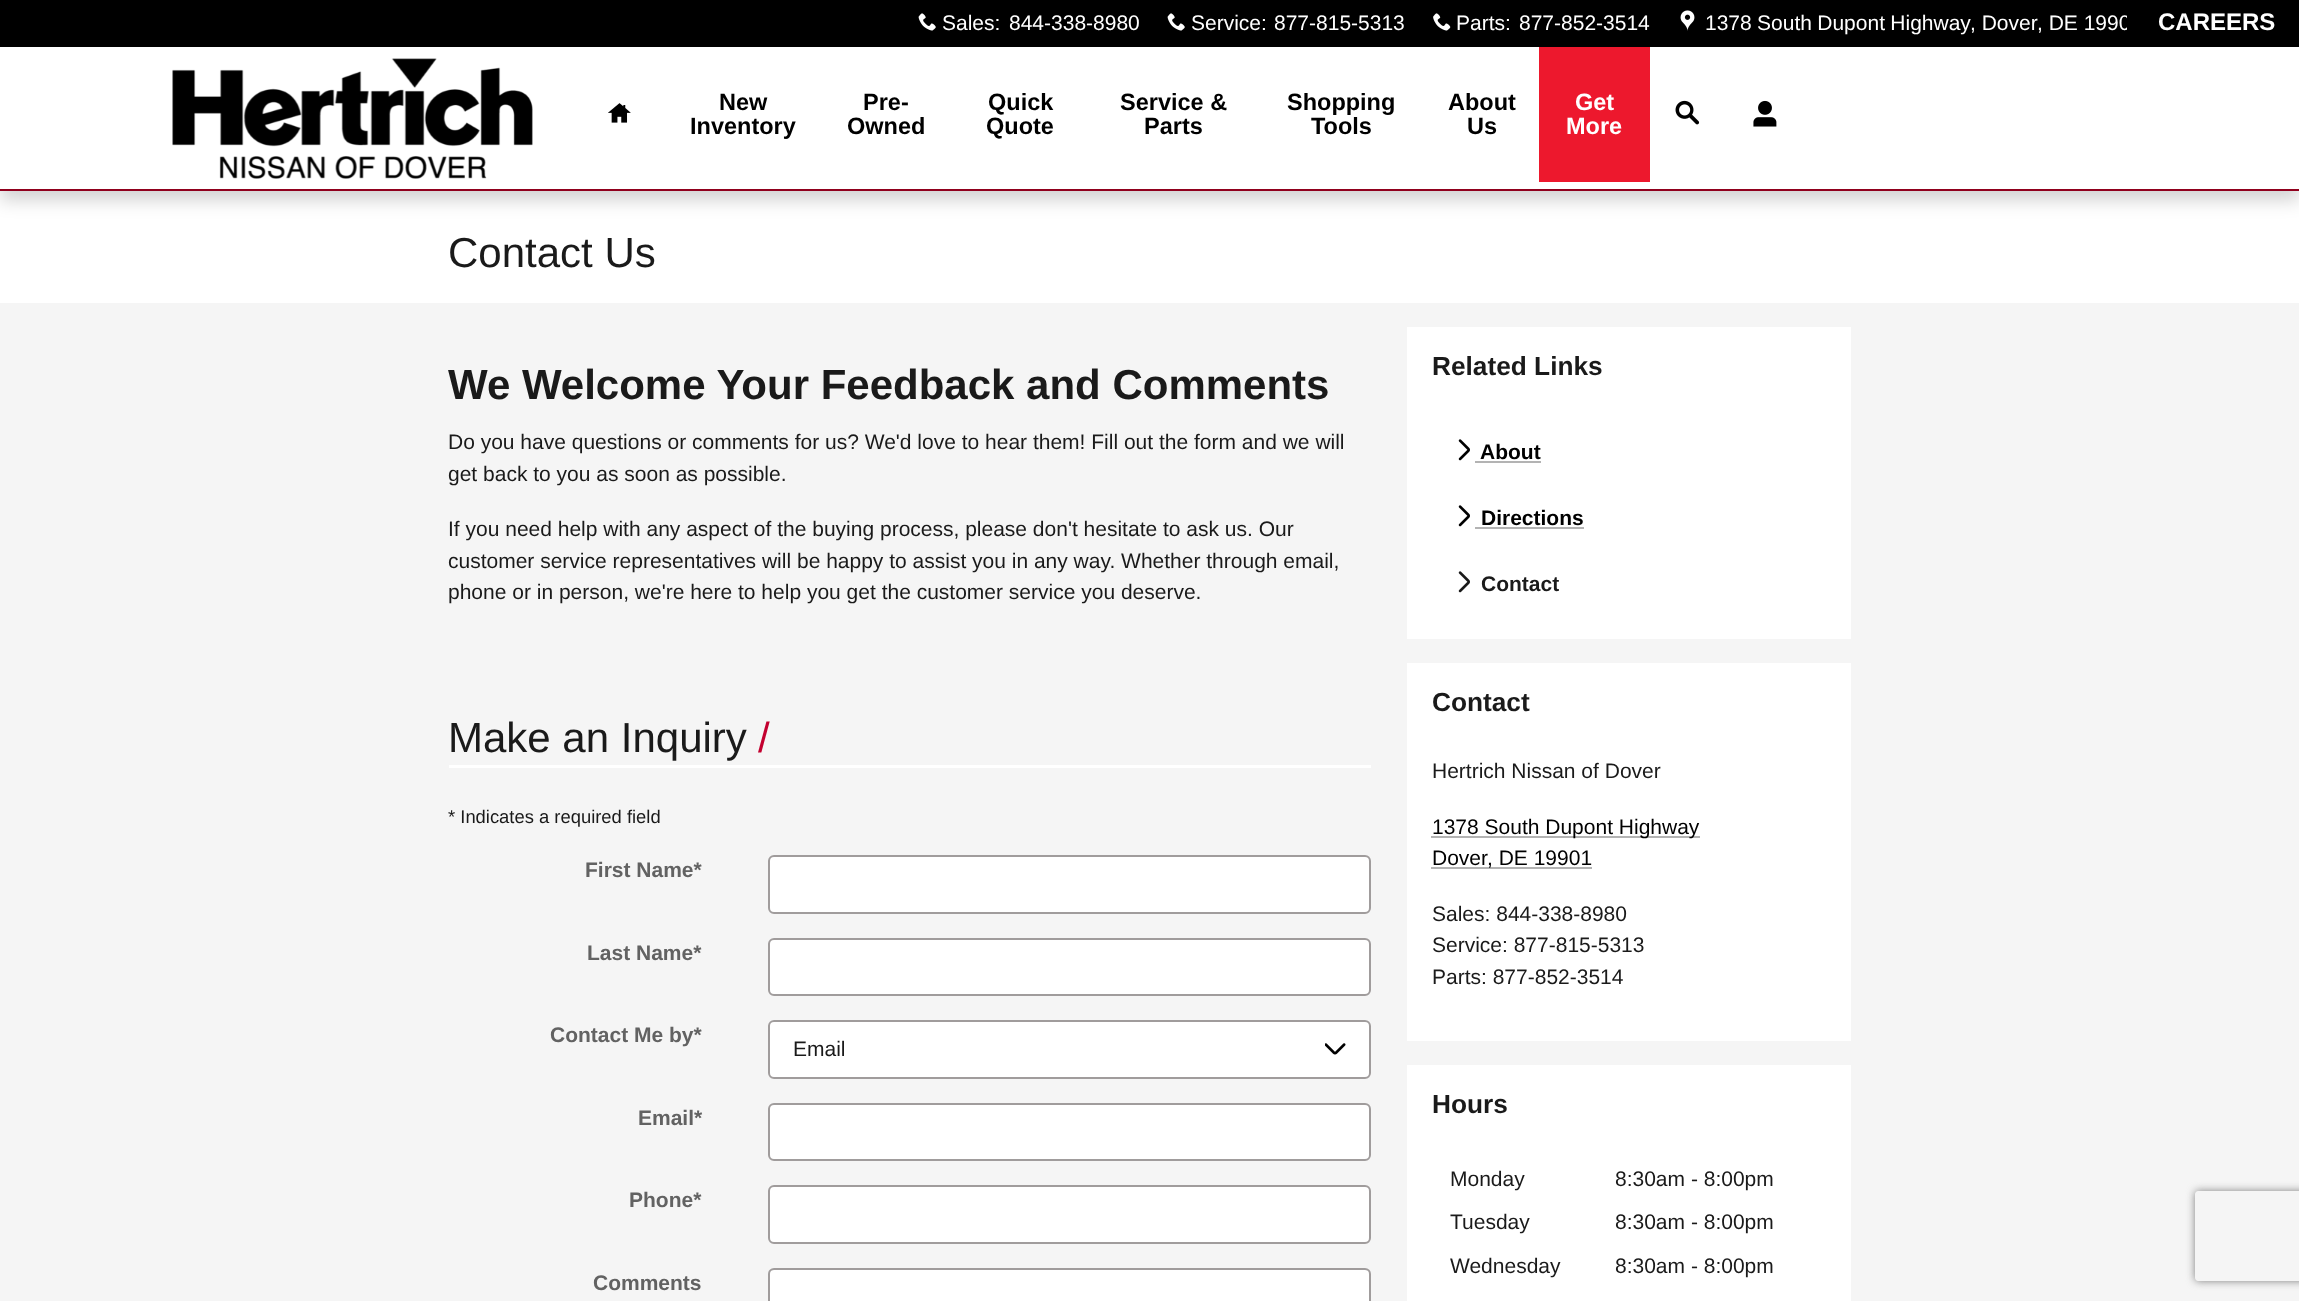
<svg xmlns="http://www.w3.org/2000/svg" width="2299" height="1301">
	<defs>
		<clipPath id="clip1"><path d="M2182 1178H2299V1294H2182ZM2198 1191H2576C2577.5 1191 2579 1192.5 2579 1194V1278C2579 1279.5 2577.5 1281 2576 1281H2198C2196.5 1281 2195 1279.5 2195 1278V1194C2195 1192.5 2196.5 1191 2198 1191Z" clip-rule="evenodd" /></clipPath>
	</defs>
	<rect width="100%" height="100%" fill="#F5F5F5" />
	<rect x="0" y="191" width="2299" height="112" fill="#FFFFFF" />
	<rect x="0" y="9" width="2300" height="191" fill="#000000" fill-opacity="0.18" filter="blur(9px)" />
	<rect x="0" y="47" width="2299" height="142" fill="#FFFFFF" />
	<rect x="0" y="189" width="2299" height="2" fill="#90001D" />
	<rect x="0" y="0" width="2127" height="47" fill="#000000" />
	<image x="918" y="13" width="18" height="18" href="assets/img1.png" />
	<g font-family="Liberation Sans" font-size="21" fill="#FFFFFF">
		<text x="942" y="30">Sales:</text>
		<text x="1009" y="30">844-338-8980</text>
	</g>
	<image x="1167" y="13" width="18" height="18" href="assets/img1.png" />
	<g font-family="Liberation Sans" font-size="21" fill="#FFFFFF">
		<text x="1191" y="30">Service:</text>
		<text x="1274" y="30">877-815-5313</text>
	</g>
	<image x="1433" y="13" width="18" height="18" href="assets/img2.png" />
	<g font-family="Liberation Sans" font-size="21" fill="#FFFFFF">
		<text x="1456" y="30">Parts:</text>
		<text x="1519" y="30">877-852-3514</text>
	</g>
	<image x="1680" y="10" width="15" height="21" href="assets/img3.png" />
	<g font-family="Liberation Sans" font-size="21" fill="#FFFFFF">
		<text x="1705" y="30" word-spacing="-0.5">1378 South Dupont Highway</text>
		<text x="1970" y="30">, Dover</text>
		<text x="2037" y="30">, DE 1990</text>
	</g>
	<rect x="2127" y="0" width="172" height="47" fill="#000000" />
	<text x="2158" y="30" font-family="Liberation Sans" font-size="24" font-weight="700" fill="#FFFFFF">CAREERS</text>
	<image x="172" y="58" width="361" height="121" href="assets/img4.png" />
	<image x="608" y="103" width="23" height="20" href="assets/img5.png" />
	<g font-family="Liberation Sans" font-size="23.5" font-weight="700" fill="#000000">
		<text x="719" y="110">New</text>
		<text x="690" y="134">Inventory</text>
		<text x="863" y="110">Pre-</text>
		<text x="847" y="134">Owned</text>
		<text x="988" y="110">Quick</text>
		<text x="986" y="134">Quote</text>
		<text x="1120" y="110">Service &amp;</text>
		<text x="1144" y="134">Parts</text>
		<text x="1287" y="110">Shopping</text>
		<text x="1311" y="134">Tools</text>
		<text x="1448" y="110">About</text>
		<text x="1467" y="134">Us</text>
	</g>
	<rect x="1539" y="47" width="111" height="135" fill="#ED182D" />
	<g font-family="Liberation Sans" font-size="23.5" font-weight="700" fill="#FFFFFF">
		<text x="1575" y="110">Get</text>
		<text x="1566" y="134">More</text>
	</g>
	<image x="1675" y="100" width="25" height="25" href="assets/img6.png" />
	<image x="1753" y="100" width="24" height="27" href="assets/img7.png" />
	<text x="448" y="267" font-family="Liberation Sans" font-size="42" fill="#1A1A1A">Contact Us</text>
	<text x="448" y="399" font-family="Liberation Sans" font-size="42" font-weight="700" fill="#1A1A1A">We Welcome Your Feedback and Comments</text>
	<g font-family="Liberation Sans" font-size="21" fill="#1A1A1A">
		<text x="448" y="449">Do you have questions or comments for us? We'd love to hear them! Fill out the form and we will</text>
		<text x="448" y="481">get back to you as soon as possible.</text>
		<text x="448" y="536">If you need help with any aspect of the buying process, please don't hesitate to ask us. Our</text>
		<text x="448" y="568">customer service representatives will be happy to assist you in any way. Whether through email,</text>
		<text x="448" y="599">phone or in person, we're here to help you get the customer service you deserve.</text>
	</g>
	<rect x="449" y="765" width="922" height="3" fill="#FFFFFF" />
	<text x="448" y="752" font-family="Liberation Sans" font-size="42" fill="#1A1A1A">Make an Inquiry</text>
	<text x="758" y="752" font-family="Liberation Sans" font-size="42" fill="#C3002F">/</text>
	<text x="448" y="823" font-family="Liberation Sans" font-size="18.4" fill="#1A1A1A">* Indicates a required field</text>
	<text x="585" y="877" font-family="Liberation Sans" font-size="21" font-weight="700" fill="#626262">First Name*</text>
	<rect x="769" y="856" width="601" height="57" rx="5" fill="#FFFFFF" stroke="#A09C9C" stroke-width="2" />
	<text x="587" y="960" font-family="Liberation Sans" font-size="21" font-weight="700" fill="#626262">Last Name*</text>
	<rect x="769" y="939" width="601" height="56" rx="5" fill="#FFFFFF" stroke="#A09C9C" stroke-width="2" />
	<text x="550" y="1042" font-family="Liberation Sans" font-size="21" font-weight="700" fill="#626262">Contact Me by*</text>
	<rect x="768" y="1020" width="603" height="59" rx="6" fill="#FFFFFF" />
	<image x="1325" y="1043" width="21" height="12" href="assets/img8.png" />
	<rect x="769" y="1021" width="601" height="57" rx="5" fill="none" stroke="#A09C9C" stroke-width="2" />
	<text x="793" y="1056" font-family="Liberation Sans" font-size="21" fill="#1A1A1A">Email</text>
	<text x="638" y="1125" font-family="Liberation Sans" font-size="21" font-weight="700" fill="#626262">Email*</text>
	<rect x="769" y="1104" width="601" height="56" rx="5" fill="#FFFFFF" stroke="#A09C9C" stroke-width="2" />
	<text x="629" y="1207" font-family="Liberation Sans" font-size="21" font-weight="700" fill="#626262">Phone*</text>
	<rect x="769" y="1186" width="601" height="57" rx="5" fill="#FFFFFF" stroke="#A09C9C" stroke-width="2" />
	<text x="593" y="1290" font-family="Liberation Sans" font-size="21" font-weight="700" fill="#626262">Comments</text>
	<rect x="769" y="1269" width="601" height="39" rx="5" fill="#FFFFFF" stroke="#A09C9C" stroke-width="2" />
	<rect x="1407" y="327" width="444" height="312" fill="#FFFFFF" />
	<text x="1432" y="375" font-family="Liberation Sans" font-size="26.25" font-weight="700" fill="#1A1A1A">Related Links</text>
	<image x="1458" y="439" width="12" height="22" href="assets/img9.png" />
	<text x="1480" y="459" font-family="Liberation Sans" font-size="21" font-weight="700" fill="#000000">About</text>
	<rect x="1475" y="461" width="66" height="2" fill="#B3B3B3" />
	<image x="1458" y="505" width="12" height="22" href="assets/img9.png" />
	<text x="1481" y="525" font-family="Liberation Sans" font-size="21" font-weight="700" fill="#000000">Directions</text>
	<rect x="1475" y="527" width="109" height="2" fill="#B3B3B3" />
	<image x="1458" y="571" width="12" height="22" href="assets/img10.png" />
	<text x="1481" y="591" font-family="Liberation Sans" font-size="21" font-weight="700" fill="#1A1A1A">Contact</text>
	<rect x="1407" y="663" width="444" height="378" fill="#FFFFFF" />
	<text x="1432" y="711" font-family="Liberation Sans" font-size="26.25" font-weight="700" fill="#1A1A1A">Contact</text>
	<text x="1432" y="778" font-family="Liberation Sans" font-size="21" fill="#1A1A1A">Hertrich Nissan of Dover</text>
	<rect x="1431" y="836" width="269" height="2" fill="#B3B3B3" />
	<g font-family="Liberation Sans" font-size="21" fill="#000000">
		<text x="1432" y="834">1378 South Dupont Highway</text>
		<text x="1432" y="865">Dover</text>
	</g>
	<rect x="1431" y="867" width="161" height="2" fill="#B3B3B3" />
	<text x="1487" y="865" font-family="Liberation Sans" font-size="21" fill="#000000">, DE 19901</text>
	<g font-family="Liberation Sans" font-size="21" fill="#1A1A1A">
		<text x="1432" y="921">Sales: 844-338-8980</text>
		<text x="1432" y="952">Service: 877-815-5313</text>
		<text x="1432" y="984">Parts: 877-852-3514</text>
	</g>
	<rect x="1407" y="1065" width="444" height="236" fill="#FFFFFF" />
	<text x="1432" y="1113" font-family="Liberation Sans" font-size="26.25" font-weight="700" fill="#1A1A1A">Hours</text>
	<g font-family="Liberation Sans" font-size="21" fill="#1A1A1A">
		<text x="1450" y="1186">Monday</text>
		<text x="1615" y="1186">8:30am - 8:00pm</text>
		<text x="1450" y="1229">Tuesday</text>
		<text x="1615" y="1229">8:30am - 8:00pm</text>
		<text x="1450" y="1273">Wednesday</text>
		<text x="1615" y="1273">8:30am - 8:00pm</text>
	</g>
	<g clip-path="url(#clip1)">
		<rect x="2195" y="1191" width="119" height="90" rx="3" fill="#808080" filter="blur(4px)" />
	</g>
</svg>
